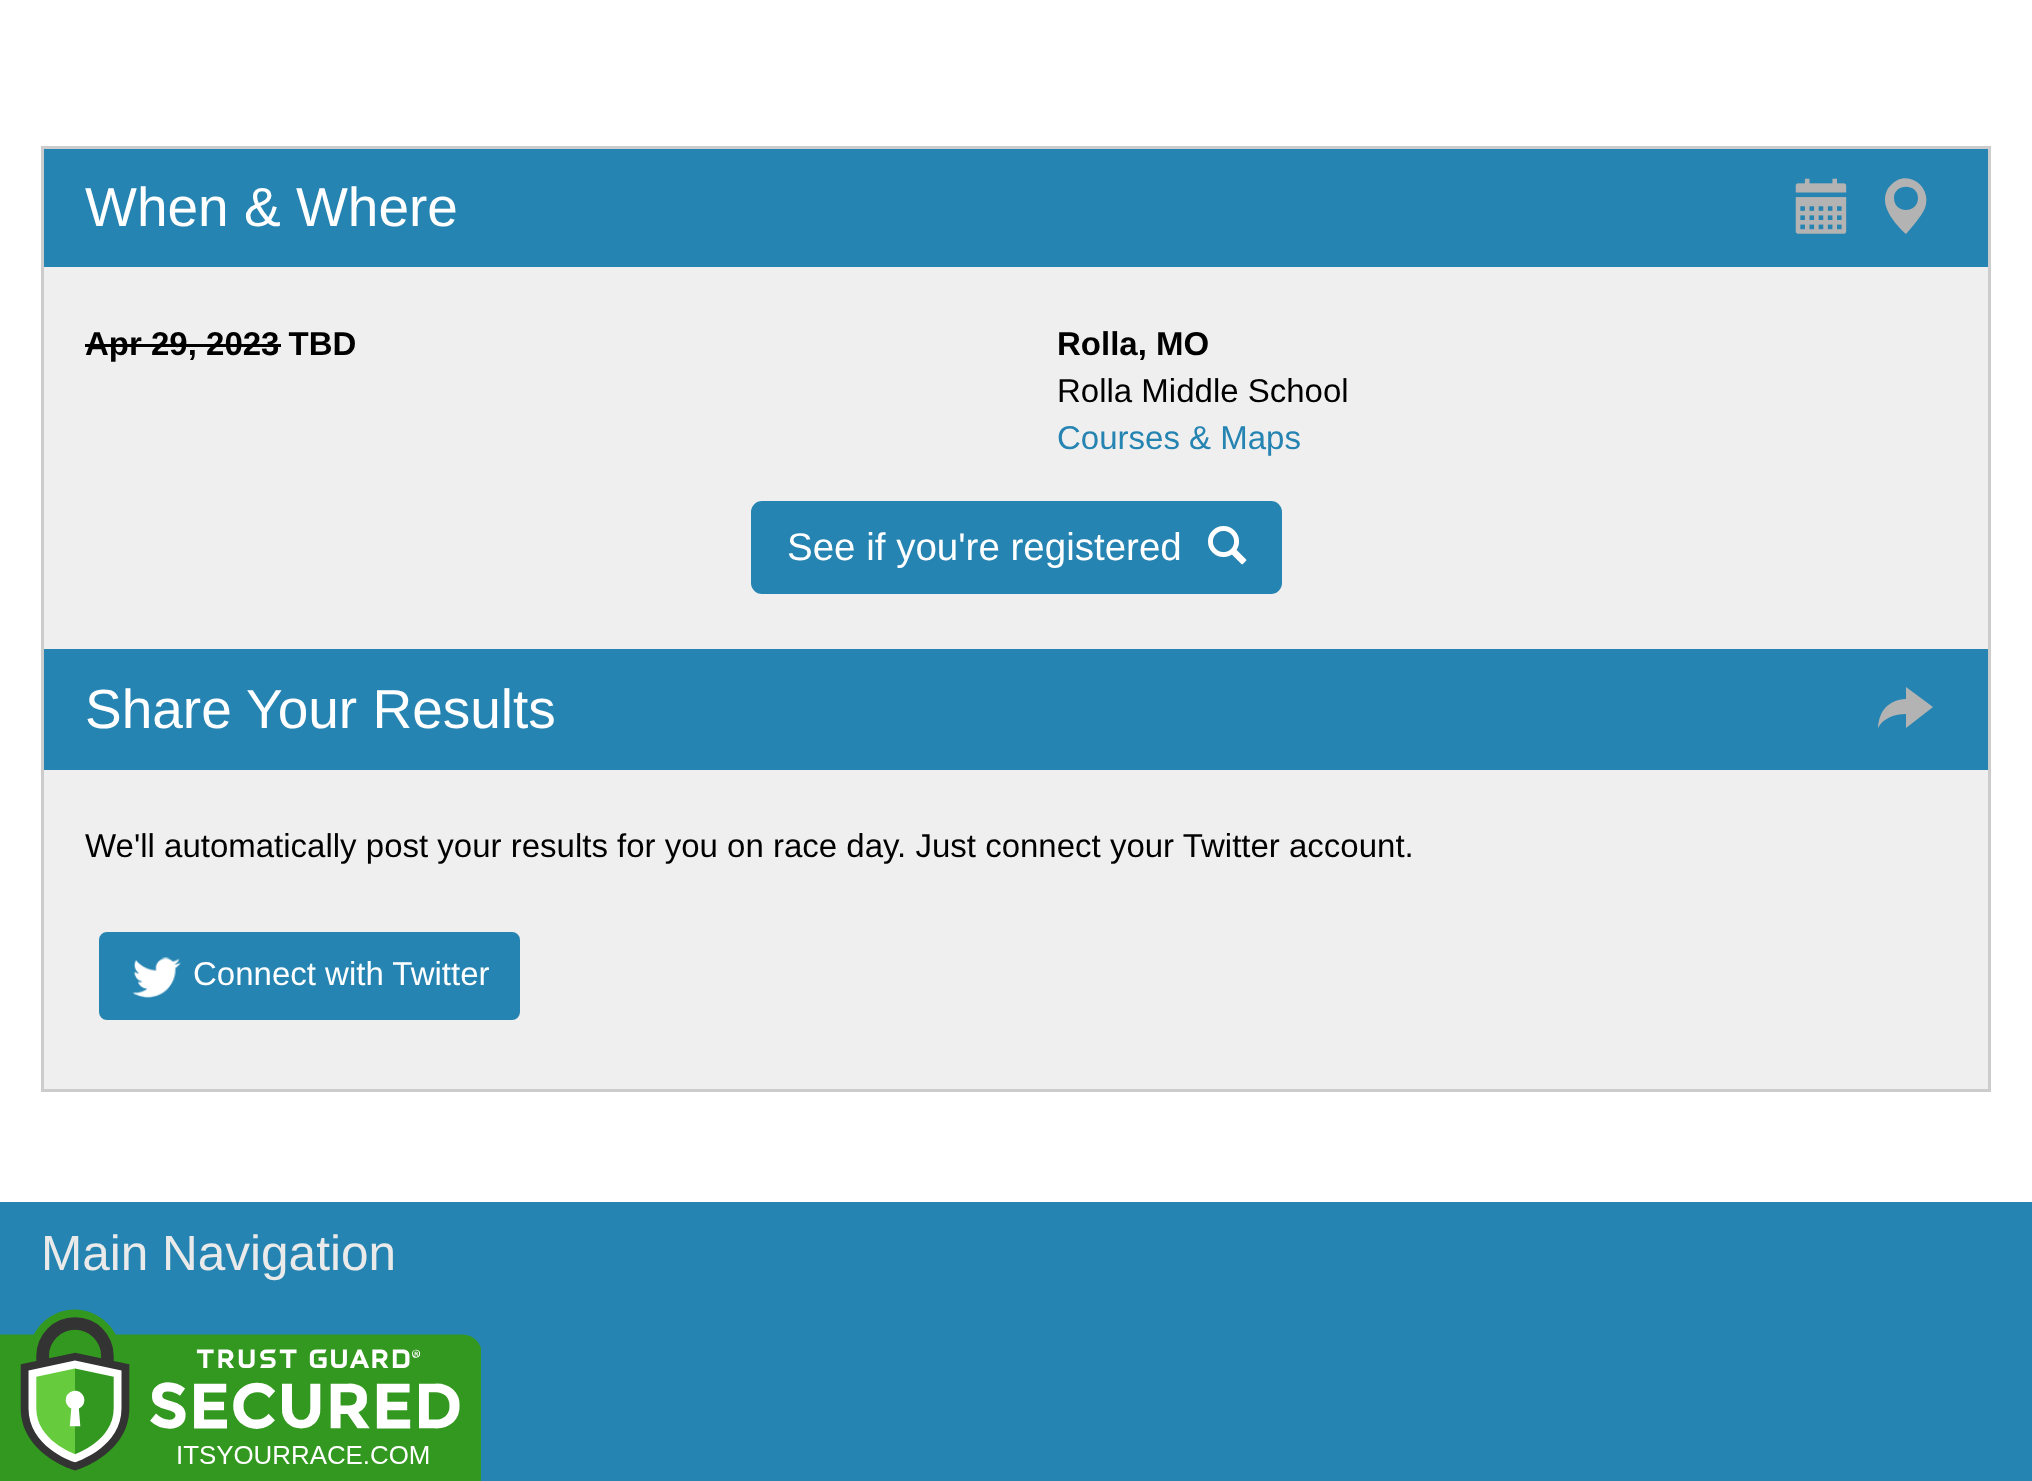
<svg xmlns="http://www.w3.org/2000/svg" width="2032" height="1481">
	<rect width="100%" height="100%" fill="#FFFFFF" />
	<rect x="44" y="267" width="1944" height="822" fill="#EFEFEF" />
	<rect x="42.5" y="147.5" width="1947" height="943" fill="none" stroke="#CCCCCC" stroke-width="3" />
	<rect x="44" y="149" width="1944" height="118" fill="#2584B1" />
	<text x="85" y="226" font-family="Liberation Sans" font-size="55" fill="#FFFFFF">When &amp; Where</text>
	<image x="1795" y="178" width="52" height="56" href="assets/img1.png" />
	<path d="M1885 200C1885 194 1887 189 1890 186C1906 167 1933 186 1925 208C1921 217 1912 227 1906 234C1897 226 1885 212 1885 200ZM1894 198C1894 214 1918 214 1918 198C1918 183 1894 183 1894 198Z" fill="#B3B3B3" />
	<text x="85" y="355" font-family="Liberation Sans" font-size="33" font-weight="700" fill="#000000">Apr 29, 2023 TBD</text>
	<rect x="85" y="344" width="196" height="3" fill="#000000" />
	<text x="1057" y="355" font-family="Liberation Sans" font-size="33" font-weight="700" fill="#000000">Rolla, MO</text>
	<text x="1057" y="402" font-family="Liberation Sans" font-size="33" fill="#000000">Rolla Middle School</text>
	<text x="1057" y="449" font-family="Liberation Sans" font-size="33" fill="#2584B1">Courses &amp; Maps</text>
	<rect x="752.5" y="502.5" width="528" height="90" rx="9.5" fill="#2584B1" stroke="#2584B1" stroke-width="3" />
	<text x="787" y="560" font-family="Liberation Sans" font-size="38.5" fill="#FFFFFF">See if you're registered</text>
	<image x="1208" y="526" width="39" height="39" href="assets/img2.png" />
	<rect x="44" y="649" width="1944" height="121" fill="#2584B1" />
	<text x="85" y="728" font-family="Liberation Sans" font-size="55" fill="#FFFFFF">Share Your Results</text>
	<path d="M1878 728C1879 711 1888 700 1906 699V687L1933 707L1906 728V714C1895 714 1883 718 1878 728Z" fill="#B3B3B3" />
	<text x="85" y="857" font-family="Liberation Sans" font-size="33" fill="#000000">We'll automatically post your results for you on race day. Just connect your Twitter account.</text>
	<rect x="100.5" y="933.5" width="418" height="85" rx="6.5" fill="#2584B1" stroke="#2584B1" stroke-width="3" />
	<image x="132" y="957" width="49" height="41" href="assets/img3.png" />
	<text x="193" y="985" font-family="Liberation Sans" font-size="33" fill="#FFFFFF">Connect with Twitter</text>
	<rect x="0" y="1202" width="2032" height="279" fill="#2584B1" />
	<text x="41" y="1270" font-family="Liberation Sans" font-size="49.5" fill="#EAEAEA">Main Navigation</text>
	<image x="0" y="1309" width="481" height="172" href="assets/img4.png" />
</svg>
